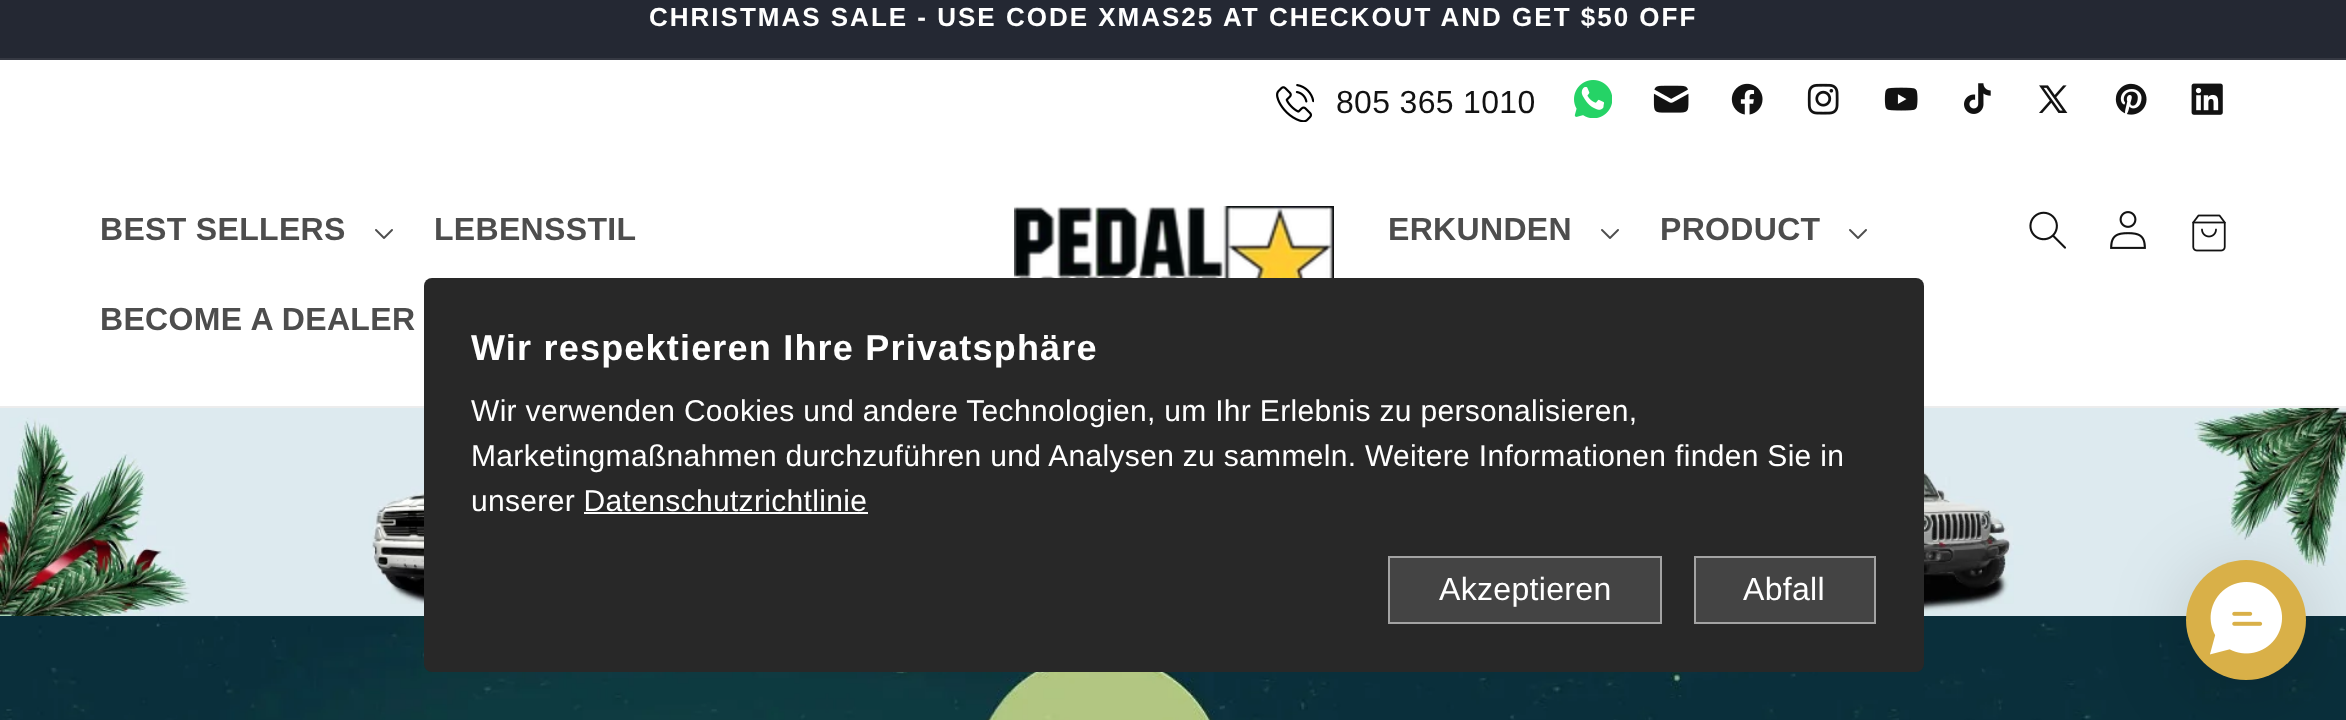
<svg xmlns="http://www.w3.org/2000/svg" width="2346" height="720">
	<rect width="100%" height="100%" fill="#FFFFFF" />
	<rect x="0" y="0" width="2346" height="58" fill="#242833" />
	<rect x="0" y="58" width="2346" height="2" fill="#363943" />
	<g font-family="Liberation Sans" font-size="26" font-weight="700" letter-spacing="2" fill="#FFFFFF">
		<text x="649" y="26">CHRISTMAS SALE - USE CODE XMAS25</text>
		<text x="1223" y="26">AT CHECKOUT AND GET $50 OFF</text>
	</g>
	<image x="1276" y="84" width="38" height="38" href="assets/img1.png" />
	<text x="1336" y="113" font-family="Liberation Sans" font-size="32" letter-spacing="0.32" fill="#121212">805 365 1010</text>
	<image x="1574" y="80" width="38" height="38" href="assets/img2.png" />
	<image x="1653" y="85" width="36" height="28" href="assets/img3.png" />
	<image x="1731" y="83" width="32" height="32" href="assets/img4.png" />
	<image x="1807" y="83" width="32" height="32" href="assets/img5.png" />
	<image x="1884" y="87" width="34" height="24" href="assets/img6.png" />
	<image x="1964" y="83" width="27" height="31" href="assets/img7.png" />
	<image x="2039" y="85" width="29" height="28" href="assets/img8.png" />
	<image x="2115" y="83" width="32" height="32" href="assets/img9.png" />
	<image x="2191" y="83" width="32" height="32" href="assets/img10.png" />
	<rect x="0" y="406" width="2346" height="2" fill="#ECECEC" />
	<text x="100" y="240" font-family="Liberation Sans" font-size="32" font-weight="700" letter-spacing="0.32" fill="#4D4D4D">BEST SELLERS</text>
	<image x="375" y="229" width="18" height="10" href="assets/img11.png" />
	<g font-family="Liberation Sans" font-size="32" font-weight="700" letter-spacing="0.32" fill="#4D4D4D">
		<text x="434" y="240">LEBENSSTIL</text>
		<text x="100" y="330">BECOME A DEALER</text>
	</g>
	<image x="1014" y="206" width="320" height="72" href="assets/img12.png" />
	<text x="1388" y="240" font-family="Liberation Sans" font-size="32" font-weight="700" letter-spacing="0.32" fill="#4D4D4D">ERKUNDEN</text>
	<image x="1601" y="229" width="18" height="10" href="assets/img11.png" />
	<text x="1660" y="240" font-family="Liberation Sans" font-size="32" font-weight="700" letter-spacing="0.32" fill="#4D4D4D">PRODUCT</text>
	<image x="1849" y="229" width="18" height="10" href="assets/img11.png" />
	<image x="2029" y="211" width="37" height="38" href="assets/img13.png" />
	<image x="2110" y="211" width="36" height="38" href="assets/img14.png" />
	<image x="2192" y="214" width="34" height="38" href="assets/img15.png" />
	<circle cx="2242" cy="210" r="20" fill="#FFFFFF" />
	<image x="0" y="408" width="2346" height="208" href="assets/img16.png" />
	<image x="0" y="616" width="2346" height="104" href="assets/img18.png" />
	<rect x="424" y="278" width="1500" height="394" rx="8" fill="#282828" />
	<text x="471" y="360" font-family="Liberation Sans" font-size="36" font-weight="700" letter-spacing="1.2" fill="#FFFFFF">Wir respektieren Ihre Privatsphäre</text>
	<g font-family="Liberation Sans" font-size="30" letter-spacing="0.32" fill="#FFFFFF">
		<text x="471" y="421">Wir verwenden Cookies und andere Technologien, um Ihr Erlebnis zu personalisieren,</text>
		<text x="471" y="466">Marketingmaßnahmen durchzuführen und Analysen zu sammeln. Weitere Informationen finden Sie in</text>
		<text x="471" y="511">unserer Datenschutzrichtlinie</text>
	</g>
	<rect x="584" y="512" width="284" height="2" fill="#FDFDFD" />
	<rect x="1389" y="557" width="272" height="66" fill="#444444" stroke="#A3A3A3" stroke-width="2" />
	<text x="1439" y="600" font-family="Liberation Sans" font-size="32" letter-spacing="0.32" fill="#FFFFFF">Akzeptieren</text>
	<rect x="1695" y="557" width="180" height="66" fill="#444444" stroke="#A3A3A3" stroke-width="2" />
	<text x="1743" y="600" font-family="Liberation Sans" font-size="32" letter-spacing="0.32" fill="#FFFFFF">Abfall</text>
	<rect x="2186" y="570" width="120" height="120" rx="60" fill="#000000" fill-opacity="0.16" filter="blur(40px)" />
	<circle cx="2246" cy="620" r="60" fill="#D9B048" />
	<image x="2210" y="582" width="73" height="73" href="assets/img17.png" />
</svg>
